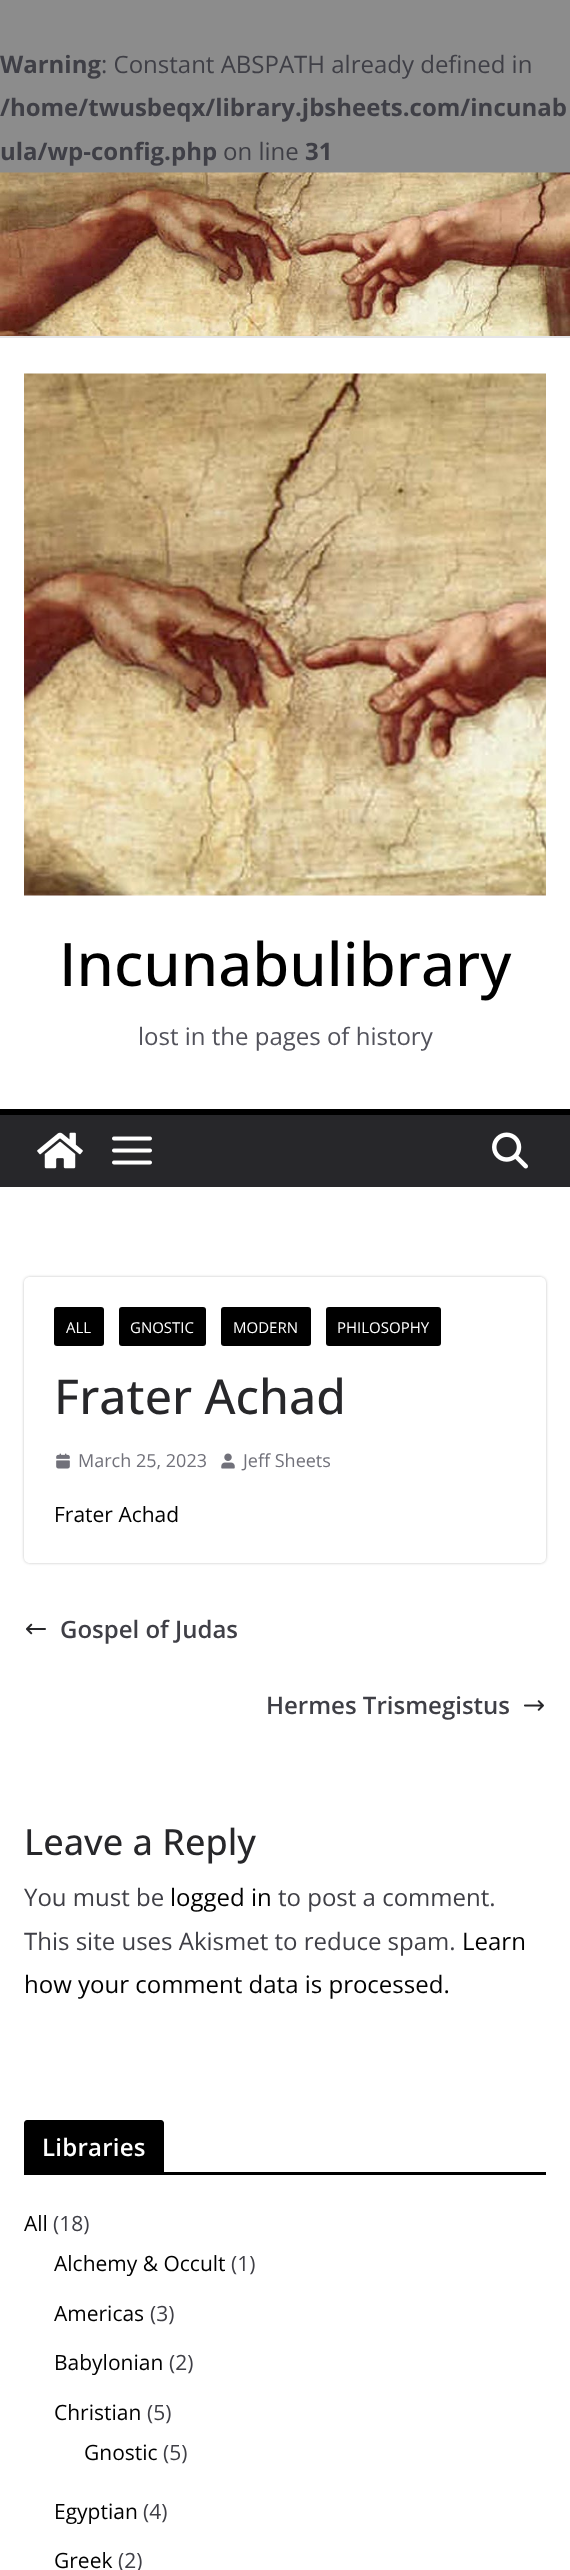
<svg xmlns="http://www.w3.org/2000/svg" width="570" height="2570">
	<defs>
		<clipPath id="clip1"><path d="M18 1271H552V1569H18ZM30 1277H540C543.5 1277 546 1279.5 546 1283V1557C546 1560.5 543.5 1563 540 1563H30C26.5 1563 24 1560.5 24 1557V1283C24 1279.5 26.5 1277 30 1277Z" clip-rule="evenodd" /></clipPath>
	</defs>
	<rect width="100%" height="100%" fill="#8C8C8C" />
	<text x="0" y="73" font-family="Open Sans" font-size="24" font-weight="700" fill="#3F3F46">Warning</text>
	<text x="101" y="73" font-family="Open Sans" font-size="24" fill="#3F3F46">: Constant ABSPATH already defined in</text>
	<g font-family="Open Sans" font-size="24" font-weight="700" fill="#3F3F46">
		<text x="0" y="116">/home/twusbeqx/library.jbsheets.com/incunab</text>
		<text x="0" y="160">ula/wp-config.php</text>
	</g>
	<text x="223" y="160" font-family="Open Sans" font-size="24" fill="#3F3F46">on line</text>
	<text x="305" y="160" font-family="Open Sans" font-size="24" font-weight="700" fill="#3F3F46">31</text>
	<rect x="0" y="338" width="570" height="771" fill="#FFFFFF" />
	<image x="0" y="172" width="570" height="164" href="assets/img1.png" />
	<rect x="0" y="336" width="570" height="2" fill="#E4E4E7" />
	<image x="24" y="373" width="522" height="523" href="assets/img2.png" />
	<text x="59" y="986" font-family="Open Sans" font-size="60" font-weight="500" fill="#000000">Incunabulibrary</text>
	<text x="138" y="1045" font-family="Open Sans" font-size="24" fill="#52525B">lost in the pages of history</text>
	<rect x="0" y="1115" width="570" height="72" fill="#27272A" />
	<rect x="0" y="1109" width="570" height="6" fill="#000000" />
	<image x="37" y="1132" width="46" height="37" href="assets/img3.png" />
	<image x="112" y="1136" width="40" height="29" href="assets/img4.png" />
	<image x="492" y="1132" width="36" height="37" href="assets/img5.png" />
	<rect x="0" y="1187" width="570" height="1383" fill="#FFFFFF" />
	<g clip-path="url(#clip1)">
		<rect x="24" y="1277" width="522" height="286" rx="6" fill="#000000" fill-opacity="0.24" filter="blur(1.5px)" />
	</g>
	<rect x="54" y="1307" width="50" height="39" rx="3" fill="#000000" />
	<text x="66" y="1333" font-family="Open Sans" font-size="15" fill="#FFFFFF">ALL</text>
	<rect x="119" y="1307" width="87" height="39" rx="3" fill="#000000" />
	<text x="130" y="1333" font-family="Open Sans" font-size="15" fill="#FFFFFF">GNOSTIC</text>
	<rect x="221" y="1307" width="90" height="39" rx="3" fill="#000000" />
	<text x="233" y="1333" font-family="Open Sans" font-size="15" fill="#FFFFFF">MODERN</text>
	<rect x="326" y="1307" width="115" height="39" rx="3" fill="#000000" />
	<text x="337" y="1333" font-family="Open Sans" font-size="15" fill="#FFFFFF">PHILOSOPHY</text>
	<text x="54" y="1414" font-family="Open Sans" font-size="48" font-weight="500" fill="#27272A">Frater Achad</text>
	<image x="56" y="1453" width="14" height="16" href="assets/img6.png" />
	<text x="78" y="1467" font-family="Open Sans" font-size="18" fill="#71717A">March 25, 2023</text>
	<image x="221" y="1453" width="14" height="16" href="assets/img7.png" />
	<text x="243" y="1467" font-family="Open Sans" font-size="18" fill="#71717A">Jeff Sheets</text>
	<text x="54" y="1522" font-family="Open Sans" font-size="21" fill="#000000">Frater Achad</text>
	<image x="26" y="1623" width="20" height="12" href="assets/img8.png" />
	<g font-family="Open Sans" font-size="24" font-weight="600" fill="#3F3F46">
		<text x="60" y="1638">Gospel of Judas</text>
		<text x="266" y="1714">Hermes Trismegistus</text>
	</g>
	<image x="524" y="1700" width="20" height="11" href="assets/img9.png" />
	<text x="24" y="1855" font-family="Open Sans" font-size="36" font-weight="500" fill="#27272A">Leave a Reply</text>
	<text x="24" y="1906" font-family="Open Sans" font-size="24" fill="#3F3F46">You must be</text>
	<text x="170" y="1906" font-family="Open Sans" font-size="24" fill="#000000">logged in</text>
	<g font-family="Open Sans" font-size="24" fill="#3F3F46">
		<text x="278" y="1906">to post a comment.</text>
		<text x="24" y="1950">This site uses Akismet to reduce spam.</text>
	</g>
	<g font-family="Open Sans" font-size="24" fill="#000000">
		<text x="462" y="1950">Learn</text>
		<text x="24" y="1993">how your comment data is processed.</text>
	</g>
	<rect x="24" y="2172" width="522" height="3" fill="#000000" />
	<path d="M27 2120H161C162.5 2120 164 2121.5 164 2123V2172H24V2123C24 2121.5 25.5 2120 27 2120Z" fill="#000000" />
	<text x="42" y="2156" font-family="Open Sans" font-size="24" font-weight="600" letter-spacing="0.25" fill="#FFFFFF">Libraries</text>
	<text x="24" y="2231" font-family="Open Sans" font-size="21" fill="#000000">All</text>
	<text x="53" y="2231" font-family="Open Sans" font-size="21" fill="#3F3F46">(18)</text>
	<text x="54" y="2271" font-family="Open Sans" font-size="21" fill="#000000">Alchemy &amp; Occult</text>
	<text x="231" y="2271" font-family="Open Sans" font-size="21" fill="#3F3F46">(1)</text>
	<text x="54" y="2321" font-family="Open Sans" font-size="21" fill="#000000">Americas</text>
	<text x="150" y="2321" font-family="Open Sans" font-size="21" fill="#3F3F46">(3)</text>
	<text x="54" y="2370" font-family="Open Sans" font-size="21" fill="#000000">Babylonian</text>
	<text x="169" y="2370" font-family="Open Sans" font-size="21" fill="#3F3F46">(2)</text>
	<text x="54" y="2420" font-family="Open Sans" font-size="21" fill="#000000">Christian</text>
	<text x="147" y="2420" font-family="Open Sans" font-size="21" fill="#3F3F46">(5)</text>
	<text x="84" y="2460" font-family="Open Sans" font-size="21" fill="#000000">Gnostic</text>
	<text x="163" y="2460" font-family="Open Sans" font-size="21" fill="#3F3F46">(5)</text>
	<text x="54" y="2519" font-family="Open Sans" font-size="21" fill="#000000">Egyptian</text>
	<text x="143" y="2519" font-family="Open Sans" font-size="21" fill="#3F3F46">(4)</text>
	<text x="54" y="2568" font-family="Open Sans" font-size="21" fill="#000000">Greek</text>
	<text x="118" y="2568" font-family="Open Sans" font-size="21" fill="#3F3F46">(2)</text>
</svg>
